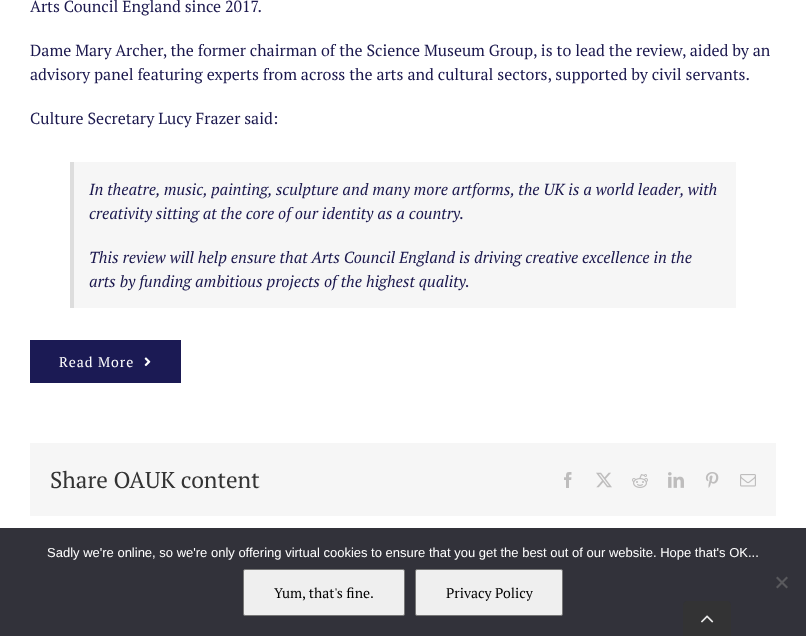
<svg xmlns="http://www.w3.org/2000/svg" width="806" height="636">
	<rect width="100%" height="100%" fill="#FFFFFF" />
	<g font-family="PT Serif" font-size="16" fill="#1A174D">
		<text x="30" y="12">Arts Council England since 2017.</text>
		<text x="30" y="56">Dame Mary Archer, the former chairman of the Science Museum Group, is to lead the review, aided by an</text>
		<text x="30" y="80">advisory panel featuring experts from across the arts and cultural sectors, supported by civil servants.</text>
		<text x="30" y="124">Culture Secretary Lucy Frazer said:</text>
	</g>
	<rect x="74" y="162" width="662" height="146" fill="#F6F6F6" />
	<rect x="70" y="162" width="4" height="146" fill="#DDDDDD" />
	<g font-family="PT Serif" font-size="16" font-style="italic" fill="#1A174D">
		<text x="89" y="195">In theatre, music, painting, sculpture and many more artforms, the UK is a world leader, with</text>
		<text x="89" y="219">creativity sitting at the core of our identity as a country.</text>
		<text x="89" y="263">This review will help ensure that Arts Council England is driving creative excellence in the</text>
		<text x="89" y="287">arts by funding ambitious projects of the highest quality.</text>
	</g>
	<rect x="30" y="340" width="151" height="43" fill="#1B1A54" />
	<text x="59" y="367" font-family="PT Serif" font-size="14" letter-spacing="1" fill="#FFFFFF">Read More</text>
	<image x="144" y="357" width="7" height="10" href="assets/img1.png" />
	<rect x="30" y="443" width="746" height="73" fill="#F6F6F6" />
	<text x="50" y="488" font-family="PT Serif" font-size="23" fill="#333333">Share OAUK content</text>
	<image x="564" y="472" width="8" height="16" href="assets/img2.png" />
	<image x="596" y="472" width="16" height="16" href="assets/img3.png" />
	<image x="632" y="474" width="16" height="14" href="assets/img4.png" />
	<image x="668" y="472" width="16" height="16" href="assets/img5.png" />
	<image x="705" y="472" width="14" height="16" href="assets/img6.png" />
	<image x="740" y="474" width="16" height="13" href="assets/img7.png" />
	<rect x="0" y="528" width="806" height="108" fill="#32323A" />
	<text x="47" y="557" font-family="Liberation Sans" font-size="13" fill="#FFFFFF">Sadly we're online, so we're only offering virtual cookies to ensure that you get the best out of our website. Hope that's OK...</text>
	<path d="M786.5 576.5L788 578L777.5 588.5L776 587Z" fill="#59595D" />
	<path d="M776 578L777.5 576.5L788 587L786.5 588.5Z" fill="#59595D" />
	<rect x="243.5" y="569.5" width="161" height="46" rx="1.5" fill="#EFEFEF" stroke="#767676" />
	<text x="274" y="598" font-family="PT Serif" font-size="14" fill="#000000">Yum, that's fine.</text>
	<rect x="415.5" y="569.5" width="147" height="46" rx="1.5" fill="#EFEFEF" stroke="#767676" />
	<text x="446" y="598" font-family="PT Serif" font-size="14" fill="#000000">Privacy Policy</text>
	<path d="M687 601H727C729 601 731 603 731 605V636H683V605C683 603 685 601 687 601Z" fill="#333334" />
	<image x="701" y="615" width="13" height="8" href="assets/img8.png" />
</svg>
